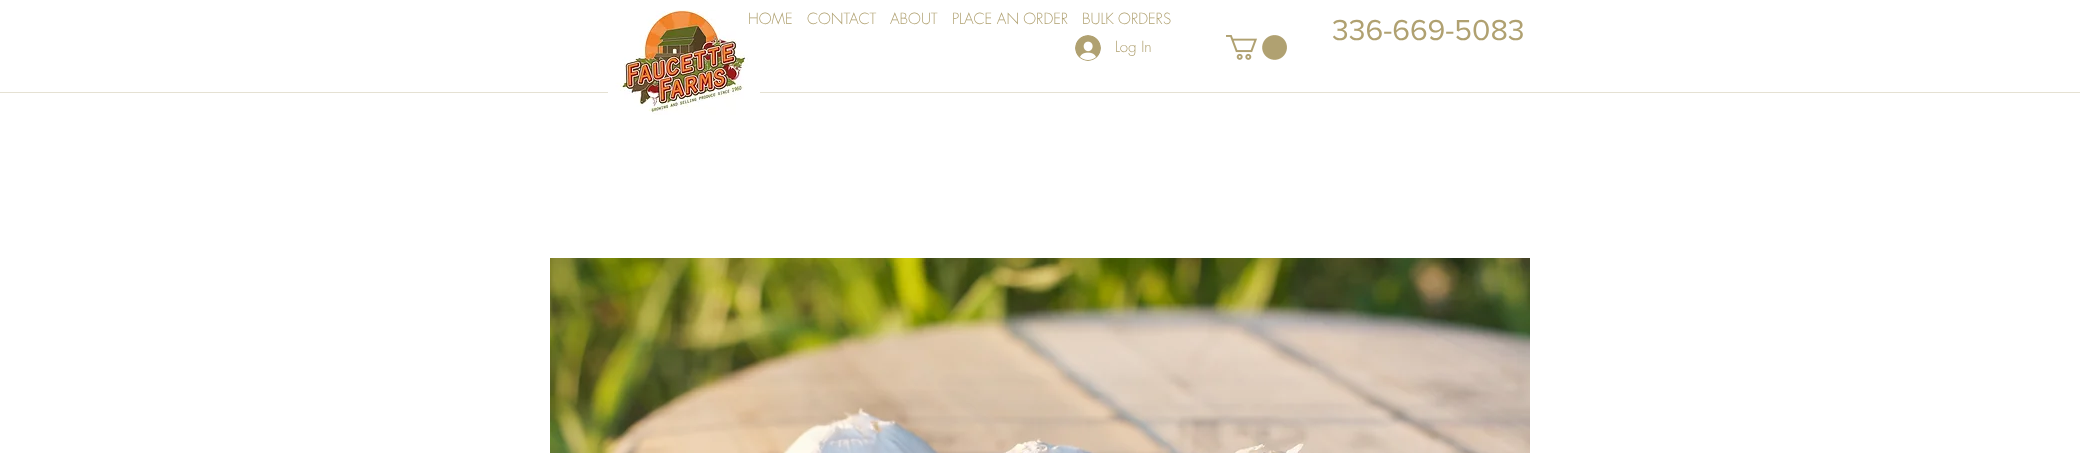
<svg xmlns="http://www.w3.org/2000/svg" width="2080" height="453">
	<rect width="100%" height="100%" fill="#FFFFFF" />
	<rect x="0" y="92" width="2080" height="1" fill="#E5E1D3" />
	<image x="608" y="10" width="152" height="105" href="assets/img1.png" />
	<g font-family="futura" font-size="15" font-weight="300" fill="#B0A171">
		<text x="748" y="24">HOME</text>
		<text x="807" y="24">CONTACT</text>
		<text x="890" y="24">ABOUT</text>
		<text x="952" y="24">PLACE AN ORDER</text>
		<text x="1082" y="24">BULK ORDERS</text>
	</g>
	<text x="1332" y="40" font-family="'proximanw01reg'" font-size="30" fill="#B0A171">336-669-5083</text>
	<image x="1075" y="35" width="26" height="26" href="assets/img2.png" />
	<text x="1115" y="52" font-family="futura" font-size="15" font-weight="300" fill="#B0A171">Log In</text>
	<image x="1226" y="35" width="61" height="25" href="assets/img3.png" />
	<image x="550" y="258" width="980" height="195" href="assets/img4.png" />
</svg>
